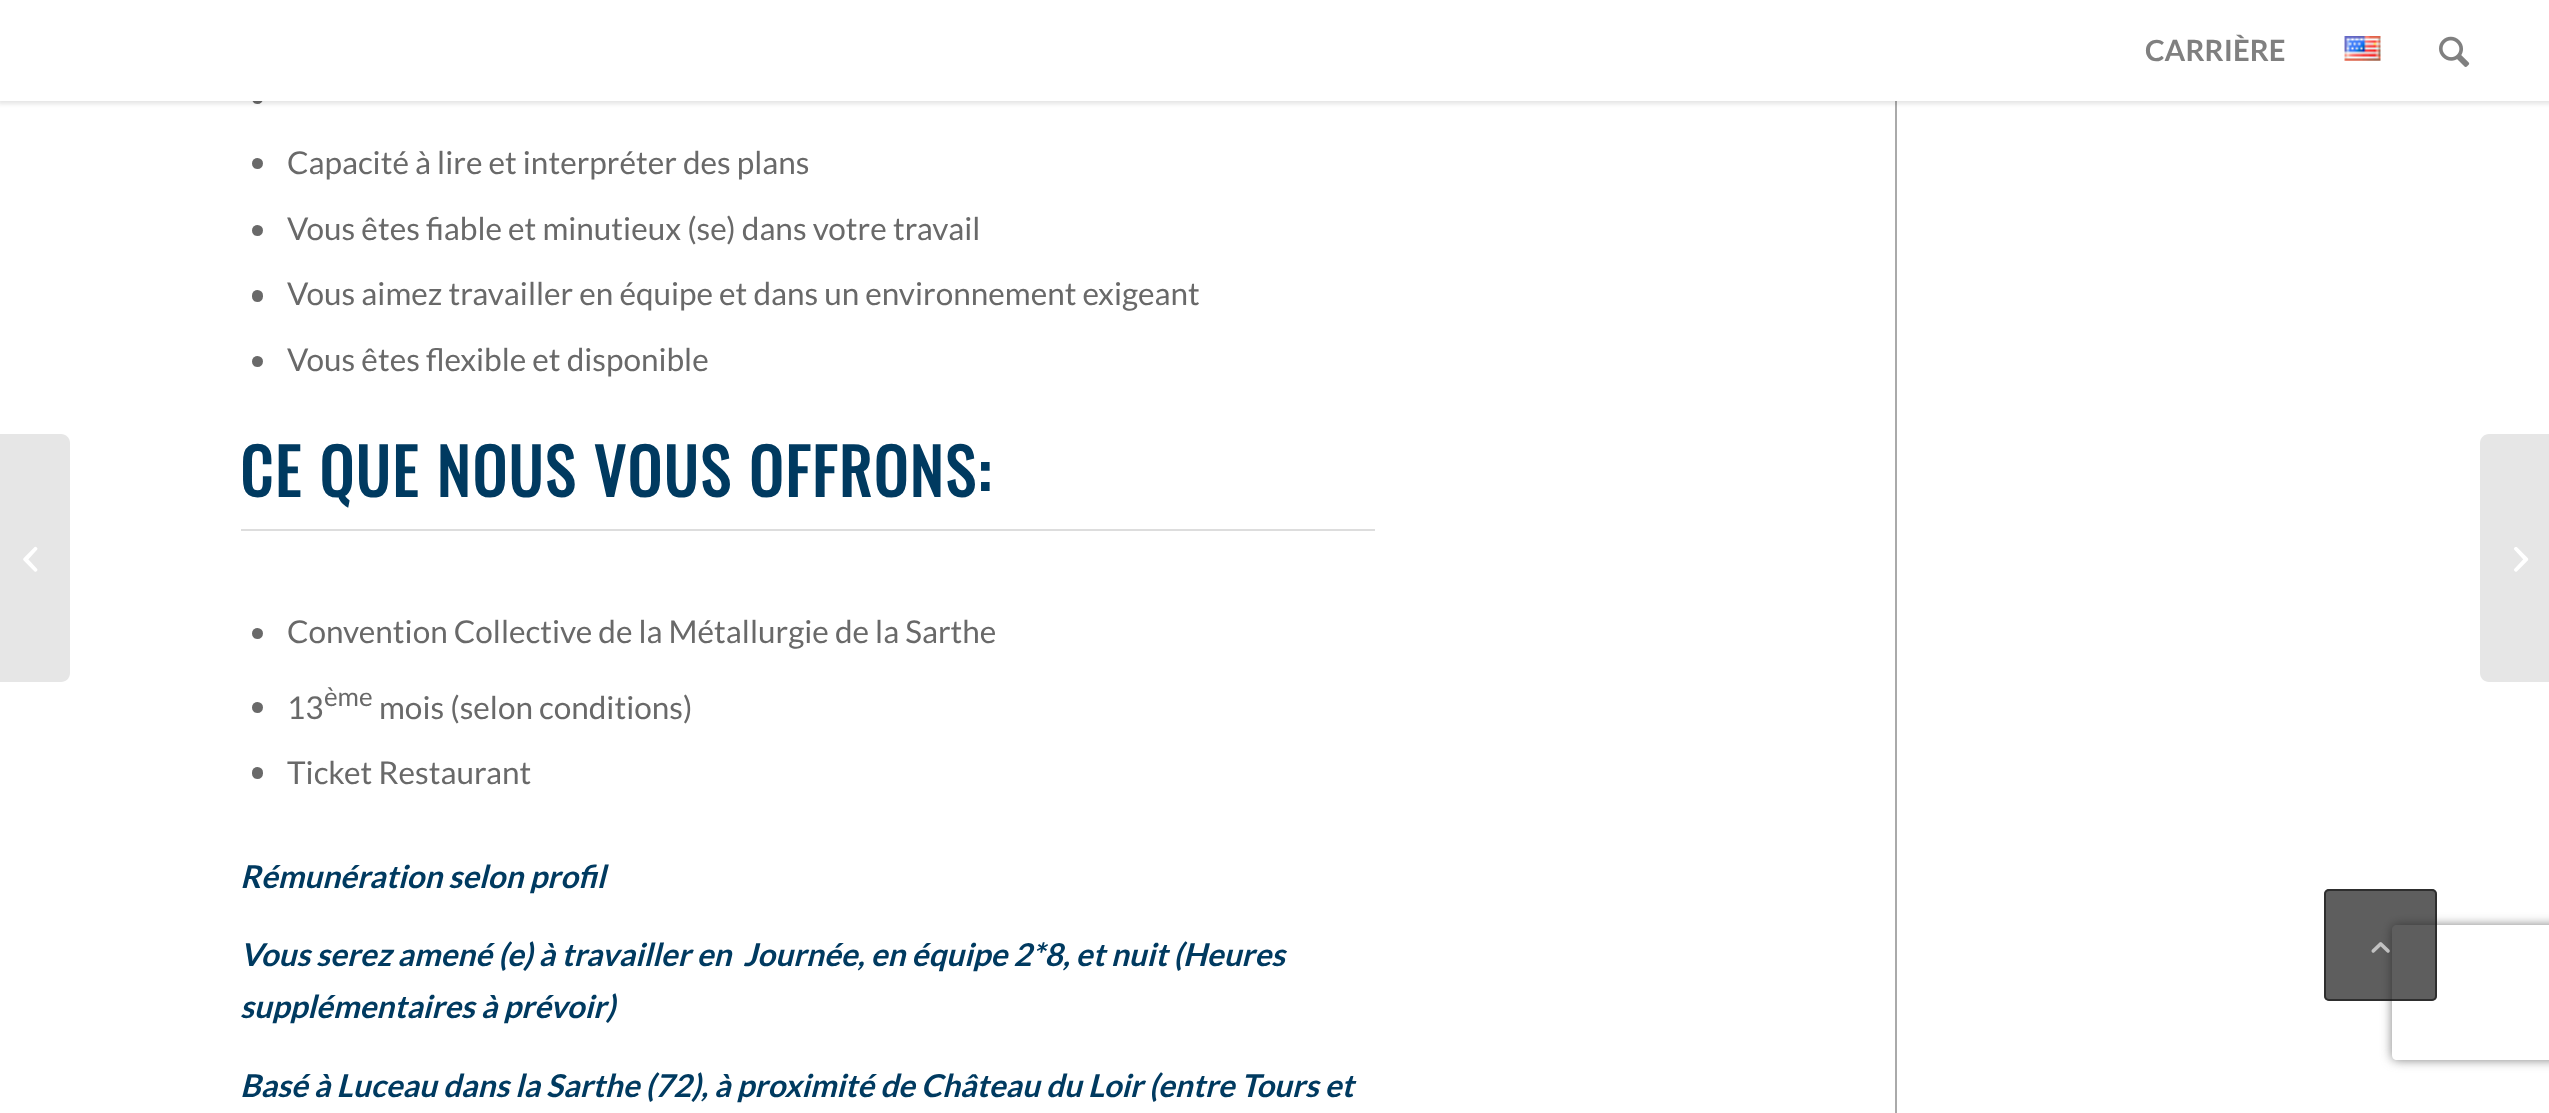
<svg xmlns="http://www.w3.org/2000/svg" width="2549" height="1113">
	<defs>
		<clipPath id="clip1"><path d="M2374 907H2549V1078H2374ZM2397 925H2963C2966 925 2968 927 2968 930V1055C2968 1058 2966 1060 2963 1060H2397C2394 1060 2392 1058 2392 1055V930C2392 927 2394 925 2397 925Z" clip-rule="evenodd" /></clipPath>
	</defs>
	<rect width="100%" height="100%" fill="#FFFFFF" />
	<rect x="1895" y="101" width="2" height="1012" fill="#AAAAAA" />
	<rect x="252" y="92" width="11" height="12" rx="5.5" fill="#696969" />
	<rect x="-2" y="-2" width="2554" height="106" fill="#000000" fill-opacity="0.1" filter="blur(2px)" />
	<rect x="0" y="0" width="2549" height="101" fill="#FFFFFF" />
	<text x="2145" y="61" font-family="Lato" font-size="29.25" font-weight="700" fill="#808080">CARRIÈRE</text>
	<image x="2344" y="36" width="37" height="25" href="assets/img1.png" />
	<image x="2439" y="36" width="31" height="31" href="assets/img2.png" />
	<path d="M0 434H61C66 434 70 438 70 443V673C70 678 66 682 61 682H0Z" fill="#E6E6E6" />
	<image x="23" y="546" width="15" height="26" href="assets/img3.png" />
	<circle cx="257.5" cy="163.5" r="5.5" fill="#696969" />
	<text x="287" y="174" font-family="Lato" font-size="31.5" fill="#696969">Capacité à lire et interpréter des plans</text>
	<circle cx="257.5" cy="230.5" r="5.5" fill="#696969" />
	<text x="287" y="240" font-family="Lato" font-size="31.5" fill="#696969">Vous êtes fiable et minutieux (se) dans votre travail</text>
	<rect x="252" y="290" width="11" height="12" rx="5.5" fill="#696969" />
	<text x="287" y="305" font-family="Lato" font-size="31.5" fill="#696969">Vous aimez travailler en équipe et dans un environnement exigeant</text>
	<circle cx="257.5" cy="361.5" r="5.5" fill="#696969" />
	<text x="287" y="371" font-family="Lato" font-size="31.5" fill="#696969">Vous êtes flexible et disponible</text>
	<text x="240" y="497" font-family="Oswald" font-size="63" font-weight="700" letter-spacing="2.25" fill="#003A60">CE QUE NOUS VOUS OFFRONS:</text>
	<rect x="241" y="529" width="1134" height="2" fill="#DDDDDD" />
	<circle cx="257.5" cy="633.5" r="5.5" fill="#696969" />
	<text x="287" y="643" font-family="Lato" font-size="31.5" fill="#696969">Convention Collective de la Métallurgie de la Sarthe</text>
	<circle cx="257.5" cy="707.5" r="5.5" fill="#696969" />
	<text x="287" y="719" font-family="Lato" font-size="31.5" fill="#696969">13</text>
	<text x="324" y="706" font-family="Lato" font-size="26" fill="#696969">ème</text>
	<text x="379" y="719" font-family="Lato" font-size="31.5" fill="#696969">mois (selon conditions)</text>
	<rect x="252" y="767" width="11" height="12" rx="5.5" fill="#696969" />
	<text x="287" y="784" font-family="Lato" font-size="31.5" fill="#696969">Ticket Restaurant</text>
	<g font-family="Lato" font-size="31.5" font-weight="700" font-style="italic" fill="#003A60">
		<text x="240" y="888">Rémunération selon profil</text>
		<text x="240" y="966" xml:space="preserve">Vous serez amené (e) à travailler en  Journée, en équipe 2*8, et nuit (Heures</text>
		<text x="240" y="1018">supplémentaires à prévoir)</text>
		<text x="240" y="1097">Basé à Luceau dans la Sarthe (72), à proximité de Château du Loir (entre Tours et</text>
	</g>
	<path d="M2489 434H2549V682H2489C2484 682 2480 678 2480 673V443C2480 438 2484 434 2489 434Z" fill="#E6E6E6" />
	<image x="2514" y="547" width="15" height="25" href="assets/img4.png" />
	<g clip-path="url(#clip1)">
		<rect x="2392" y="925" width="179" height="135" rx="5" fill="#808080" filter="blur(5.5px)" />
	</g>
	<rect x="2324" y="889" width="113" height="112" rx="5" fill="#191919" fill-opacity="0.7" />
	<rect x="2325" y="890" width="111" height="110" rx="4" fill="none" stroke="#191919" stroke-opacity="0.7" stroke-width="2" />
	<image x="2371" y="942" width="19" height="11" href="assets/img5.png" />
</svg>
